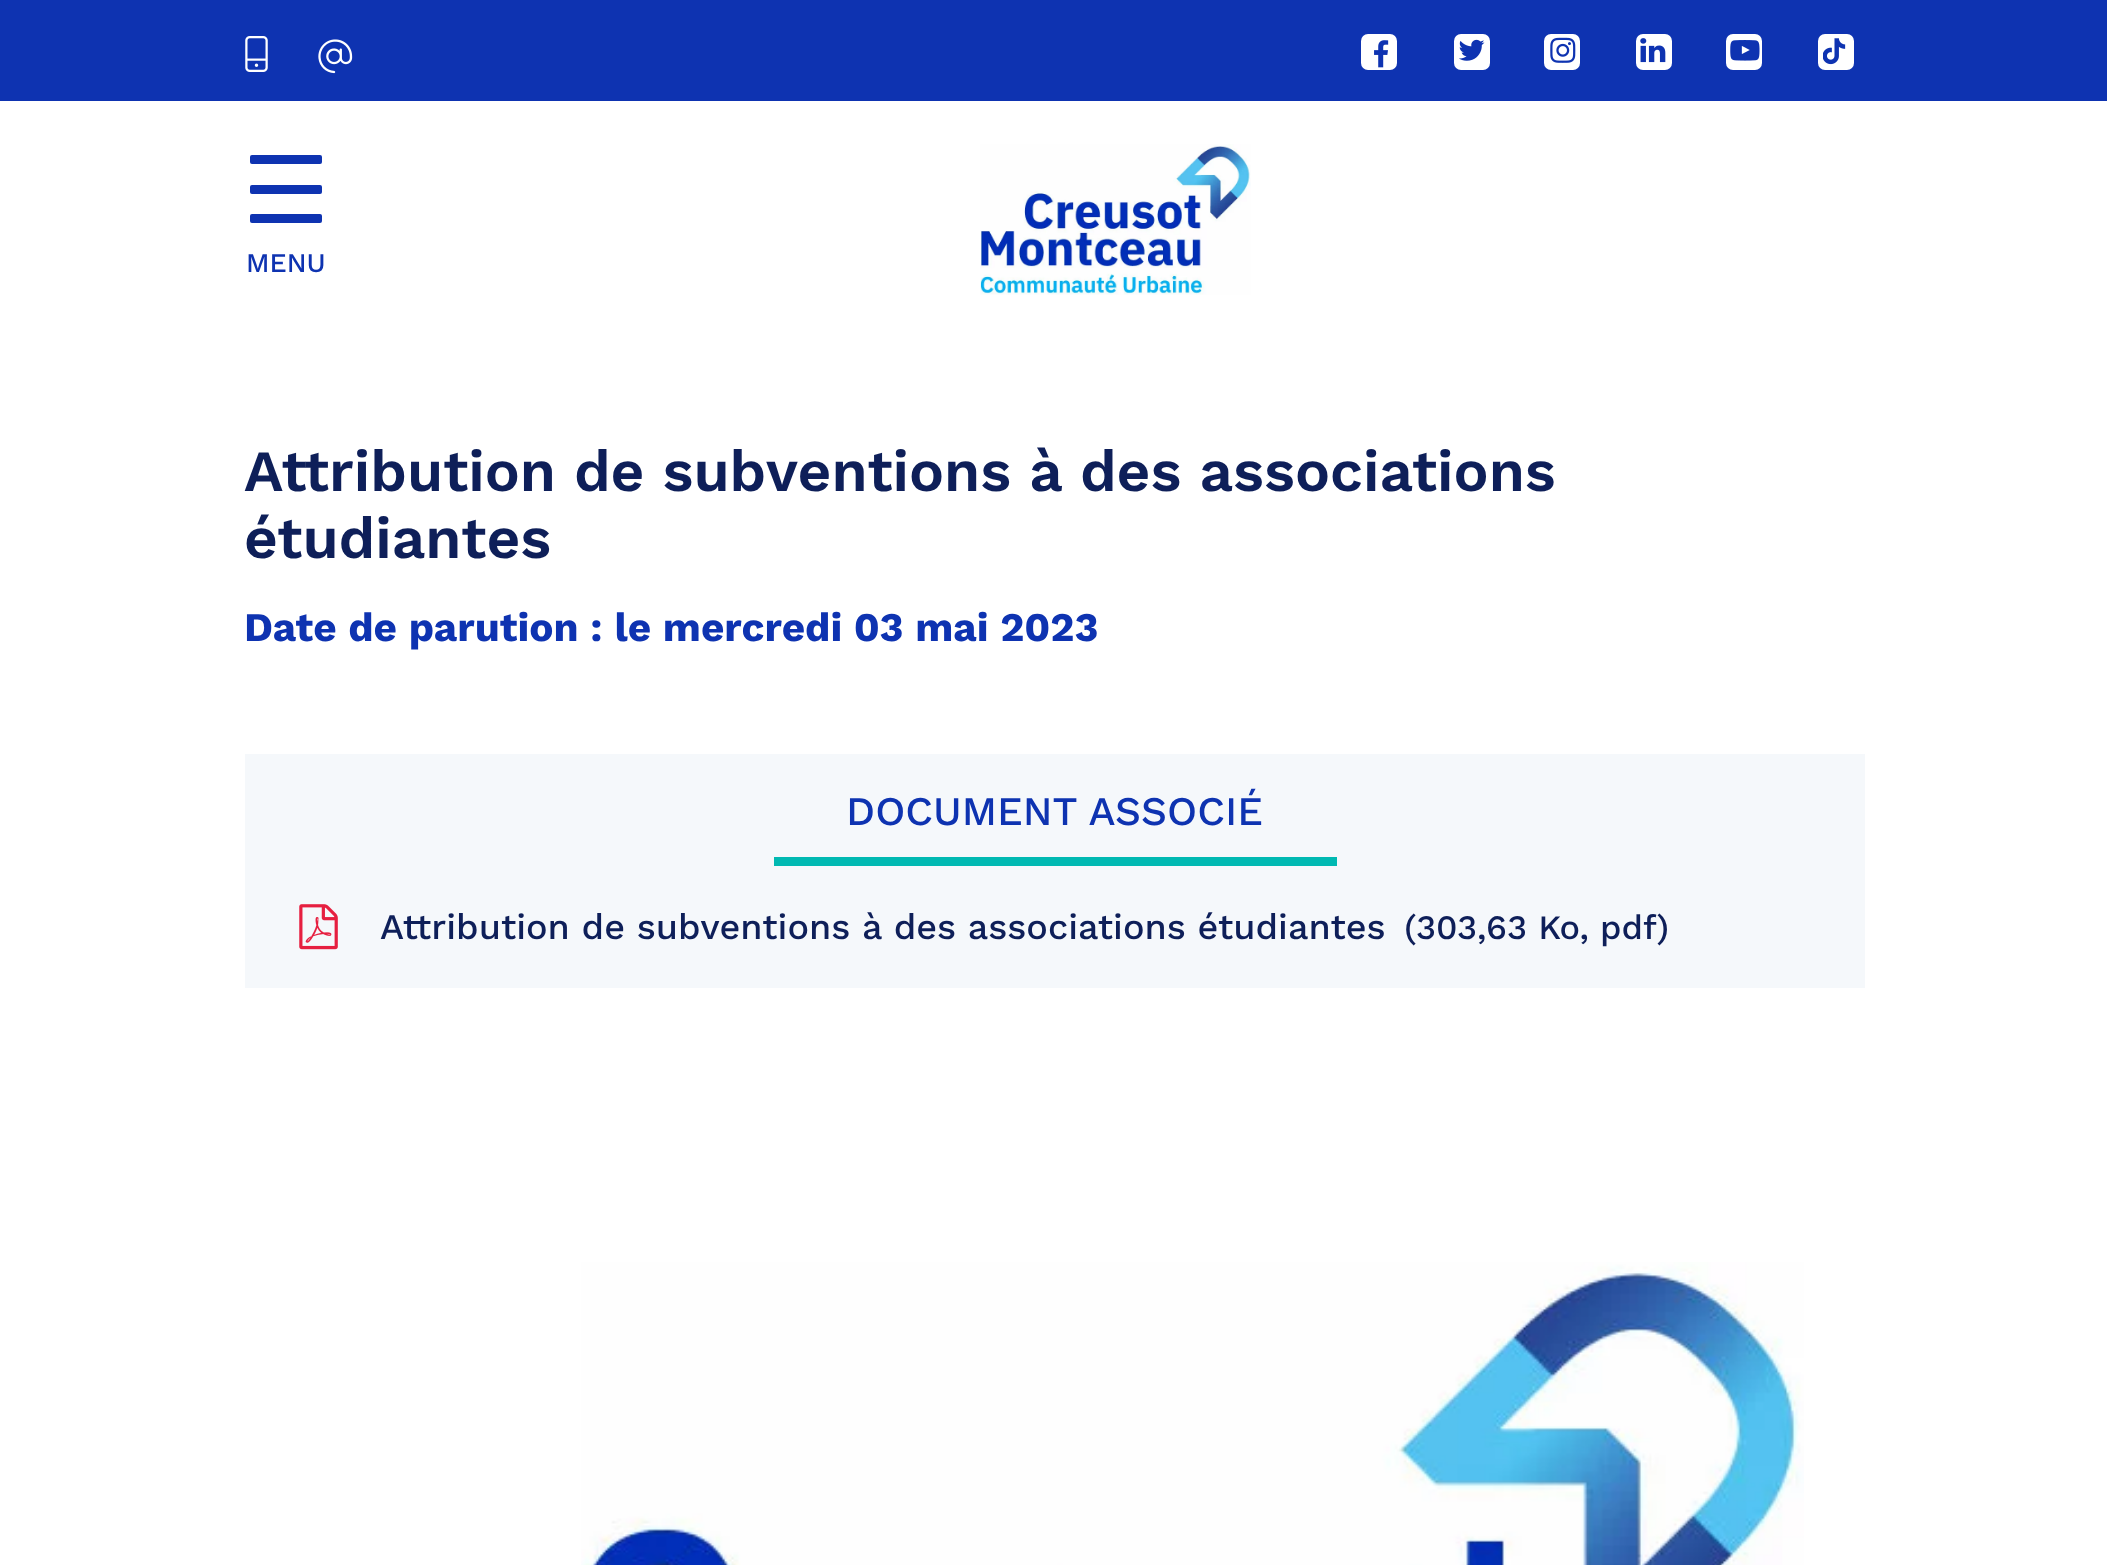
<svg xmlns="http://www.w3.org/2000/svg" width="2107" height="1565">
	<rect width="100%" height="100%" fill="#FFFFFF" />
	<rect x="0" y="0" width="2107" height="101" fill="#0E33B1" />
	<image x="245" y="36" width="23" height="36" href="assets/img1.png" />
	<image x="318" y="39" width="35" height="35" href="assets/img2.png" />
	<rect x="1361" y="34" width="36" height="36" rx="7" fill="#FFFFFF" />
	<image x="1374" y="40" width="15" height="28" href="assets/img3.png" />
	<rect x="1454" y="34" width="36" height="36" rx="7" fill="#FFFFFF" />
	<image x="1459" y="39" width="26" height="22" href="assets/img4.png" />
	<rect x="1544" y="34" width="36" height="36" rx="7" fill="#FFFFFF" />
	<image x="1550" y="37" width="26" height="26" href="assets/img5.png" />
	<rect x="1636" y="34" width="36" height="36" rx="7" fill="#FFFFFF" />
	<image x="1640" y="38" width="26" height="25" href="assets/img6.png" />
	<rect x="1726" y="34" width="36" height="36" rx="7" fill="#FFFFFF" />
	<image x="1730" y="40" width="30" height="21" href="assets/img7.png" />
	<rect x="1818" y="34" width="36" height="36" rx="7" fill="#FFFFFF" />
	<image x="1823" y="38" width="23" height="27" href="assets/img8.png" />
	<rect x="250" y="155" width="72" height="9" rx="2" fill="#0E33B1" />
	<rect x="250" y="185" width="72" height="9" rx="2" fill="#0E33B1" />
	<rect x="250" y="214" width="72" height="9" rx="2" fill="#0E33B1" />
	<text x="246" y="272" font-family="Work Sans" font-size="27" font-weight="500" fill="#0E33B1">MENU</text>
	<image x="980" y="144" width="271" height="151" href="assets/img9.png" />
	<g font-family="Work Sans" font-size="58.5" font-weight="600" fill="#0E1F59">
		<text x="244" y="491">Attribution de subventions à des associations</text>
		<text x="244" y="558">étudiantes</text>
	</g>
	<text x="244" y="641" font-family="Work Sans" font-size="40.5" font-weight="700" fill="#0E33B1">Date de parution : le mercredi 03 mai 2023</text>
	<rect x="245" y="754" width="1620" height="234" fill="#F5F8FB" />
	<text x="846" y="825" font-family="Work Sans" font-size="40.5" font-weight="500" fill="#0E33B1">DOCUMENT ASSOCIÉ</text>
	<rect x="774" y="857" width="563" height="9" fill="#00B9B2" />
	<image x="299" y="904" width="39" height="46" href="assets/img10.png" />
	<text x="380" y="939" font-family="Work Sans" font-size="36" font-weight="500" fill="#0E1F59">Attribution de subventions à des associations étudiantes</text>
	<g font-family="Work Sans" font-size="34.25" font-weight="500" fill="#0E1F59">
		<text x="1404" y="939">(</text>
		<text x="1416" y="939">303,63 Ko, pdf)</text>
	</g>
	<image x="581" y="1262" width="1223" height="303" href="assets/img11.png" />
</svg>
